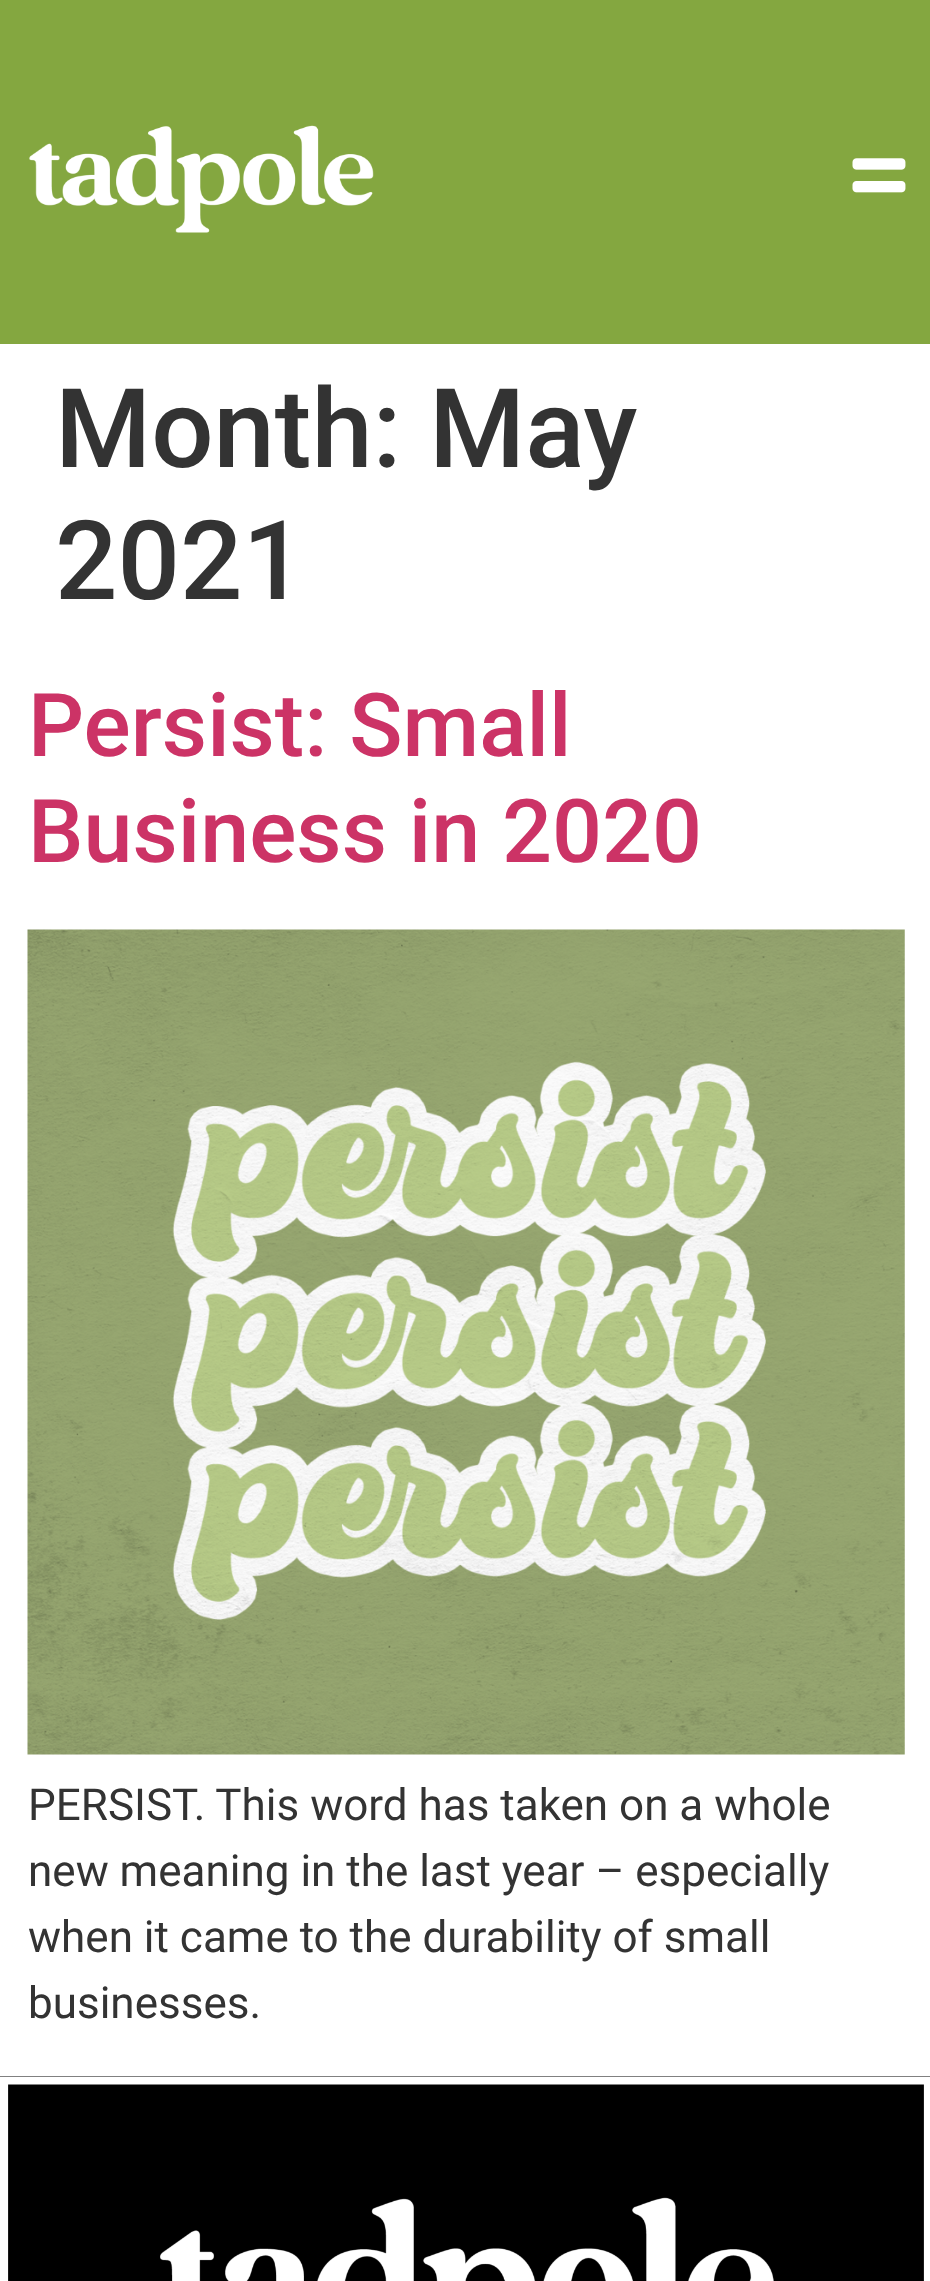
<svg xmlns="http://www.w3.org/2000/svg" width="930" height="2281">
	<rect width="100%" height="100%" fill="#FFFFFF" />
	<rect x="0" y="0" width="930" height="344" fill="#84A740" />
	<image x="29" y="125" width="345" height="108" href="assets/img1.png" />
	<image x="852" y="158" width="54" height="35" href="assets/img2.png" />
	<g font-family="Roboto" font-size="110" font-weight="500" fill="#333333">
		<text x="55" y="467">Month: May</text>
		<text x="55" y="599">2021</text>
	</g>
	<g font-family="Roboto" font-size="88" font-weight="500" fill="#CC3366">
		<text x="28" y="756">Persist: Small</text>
		<text x="28" y="862">Business in 2020</text>
	</g>
	<image x="27" y="929" width="878" height="826" href="assets/img3.png" />
	<g font-family="Roboto" font-size="44" fill="#333333">
		<text x="28" y="1820">PERSIST. This word has taken on a whole</text>
		<text x="28" y="1886">new meaning in the last year – especially</text>
		<text x="28" y="1952">when it came to the durability of small</text>
		<text x="28" y="2018">businesses.</text>
	</g>
	<rect x="0" y="2076" width="930" height="205" fill="#000000" />
	<path d="M4 2080.5H928V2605.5H4Z" fill="none" stroke="#FFFFFF" stroke-width="8.2" />
	<image x="160" y="2197" width="614" height="84" href="assets/img4.png" />
</svg>
